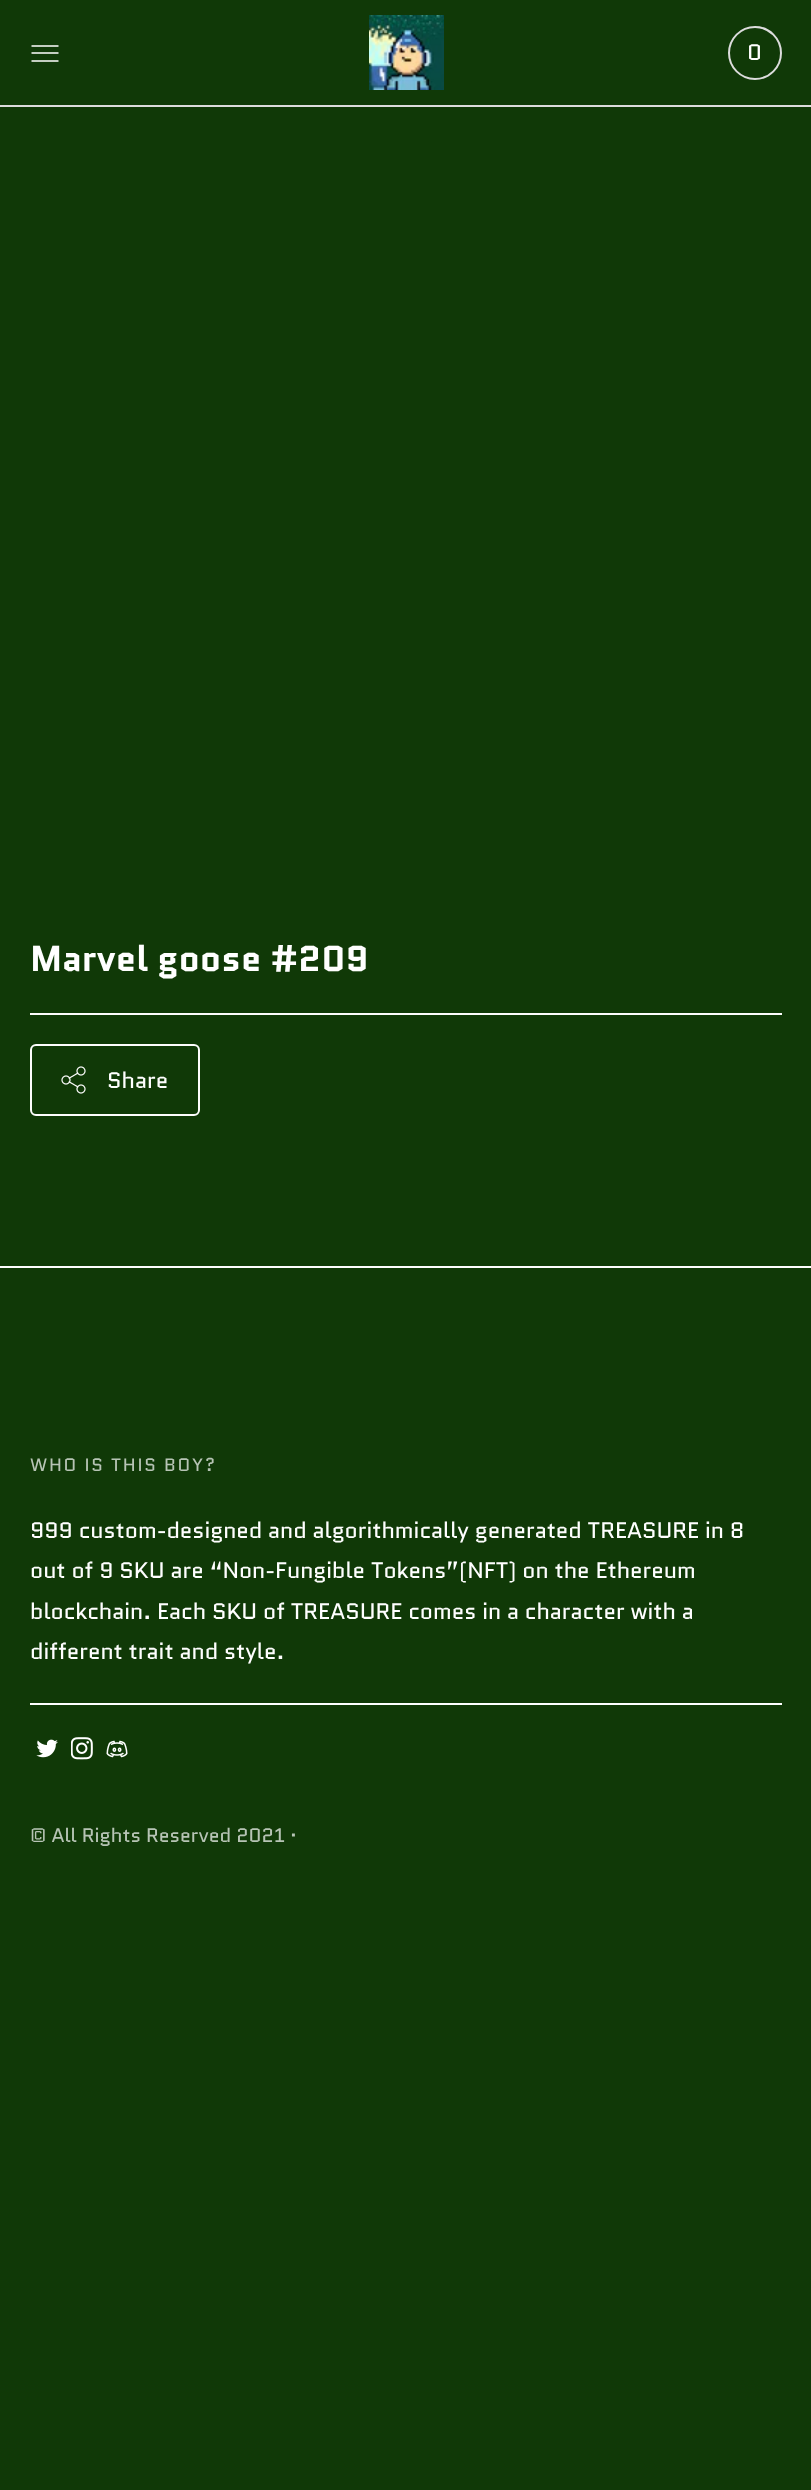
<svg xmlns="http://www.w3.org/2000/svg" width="811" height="2490">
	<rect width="100%" height="100%" fill="#103907" />
	<rect x="0" y="105" width="811" height="2" fill="#DCDCDC" />
	<path d="M31.5 46H58.5M31.5 53H58.5M31.5 61H58.5" fill="none" stroke="#FFFFFF" stroke-width="1.5" />
	<image x="369" y="15" width="75" height="75" href="assets/img1.png" />
	<circle cx="755" cy="53" r="26" fill="none" stroke="#DCDCDC" stroke-width="2" />
	<text x="747" y="60" font-family="Quantico" font-size="22.5" fill="#FFFFFF">0</text>
	<text x="30" y="971" font-family="Quantico" font-size="36" font-weight="700" fill="#FFFFFF">Marvel goose #209</text>
	<rect x="30" y="1013" width="752" height="2" fill="#FDFDFD" />
	<rect x="31" y="1045" width="168" height="70" rx="5" fill="none" stroke="#FDFDFD" stroke-width="2" />
	<image x="61" y="1066" width="25" height="28" href="assets/img2.png" />
	<text x="107" y="1088" font-family="Quantico" font-size="22.5" fill="#FFFFFF">Share</text>
	<rect x="0" y="1266" width="811" height="2" fill="#FDFDFD" />
	<text x="30" y="1471" font-family="Quantico" font-size="18" letter-spacing="1.75" fill="#B7C4B5">WHO IS THIS BOY?</text>
	<g font-family="Quantico" font-size="22.5" fill="#FFFFFF">
		<text x="30" y="1538">999 custom-designed and algorithmically generated TREASURE in 8</text>
		<text x="30" y="1578">out of 9 SKU are “Non-Fungible Tokens”(NFT) on the Ethereum</text>
		<text x="30" y="1619">blockchain. Each SKU of TREASURE comes in a character with a</text>
		<text x="30" y="1659">different trait and style.</text>
	</g>
	<rect x="30" y="1703" width="752" height="2" fill="#FFFFFF" />
	<image x="36" y="1739" width="22" height="19" href="assets/img3.png" />
	<image x="71" y="1737" width="22" height="23" href="assets/img4.png" />
	<image x="106" y="1740" width="22" height="18" href="assets/img5.png" />
	<text x="30" y="1842" font-family="Quantico" font-size="19.5" fill="#B7C4B5">© All Rights Reserved 2021 ·</text>
</svg>
